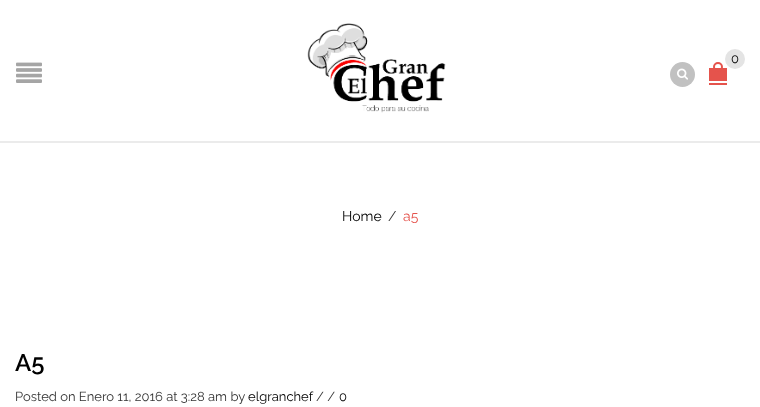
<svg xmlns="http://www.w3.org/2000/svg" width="760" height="407">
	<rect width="100%" height="100%" fill="#FFFFFF" />
	<image x="307" y="23" width="139" height="90" href="assets/img1.png" />
	<rect x="709" y="68" width="18" height="13" fill="#E5534C" />
	<circle cx="735" cy="59" r="10" fill="#E4E4E4" />
	<text x="731" y="63" font-family="Raleway" font-size="13" fill="#000000">0</text>
	<circle cx="718" cy="67" r="4" fill="none" stroke="#E5534C" stroke-width="2" />
	<rect x="709" y="83" width="18" height="2" fill="#E5534C" />
	<circle cx="682.5" cy="74.5" r="12.5" fill="#C1C1C1" />
	<image x="677" y="68" width="11" height="12" href="assets/img2.png" />
	<image x="16" y="62" width="26" height="21" href="assets/img3.png" />
	<rect x="0" y="141" width="760" height="2" fill="#EBEBEB" />
	<text x="342" y="221" font-family="Raleway" font-size="14" fill="#000000">Home</text>
	<text x="388" y="221" font-family="Raleway" font-size="14" fill="#333333">/</text>
	<text x="403" y="221" font-family="Raleway" font-size="14" fill="#E5534C">a5</text>
	<text x="15" y="371" font-family="Raleway" font-size="24" font-weight="600" fill="#000000">A5</text>
	<text x="15" y="401" font-family="Raleway" font-size="13" fill="#333333">Posted on Enero 11, 2016 at 3:28 am by</text>
	<text x="248" y="401" font-family="Raleway" font-size="13" fill="#000000">elgranchef</text>
	<text x="316" y="401" font-family="Raleway" font-size="13" fill="#333333">/ /</text>
	<text x="339" y="401" font-family="Raleway" font-size="13" fill="#000000">0</text>
</svg>
